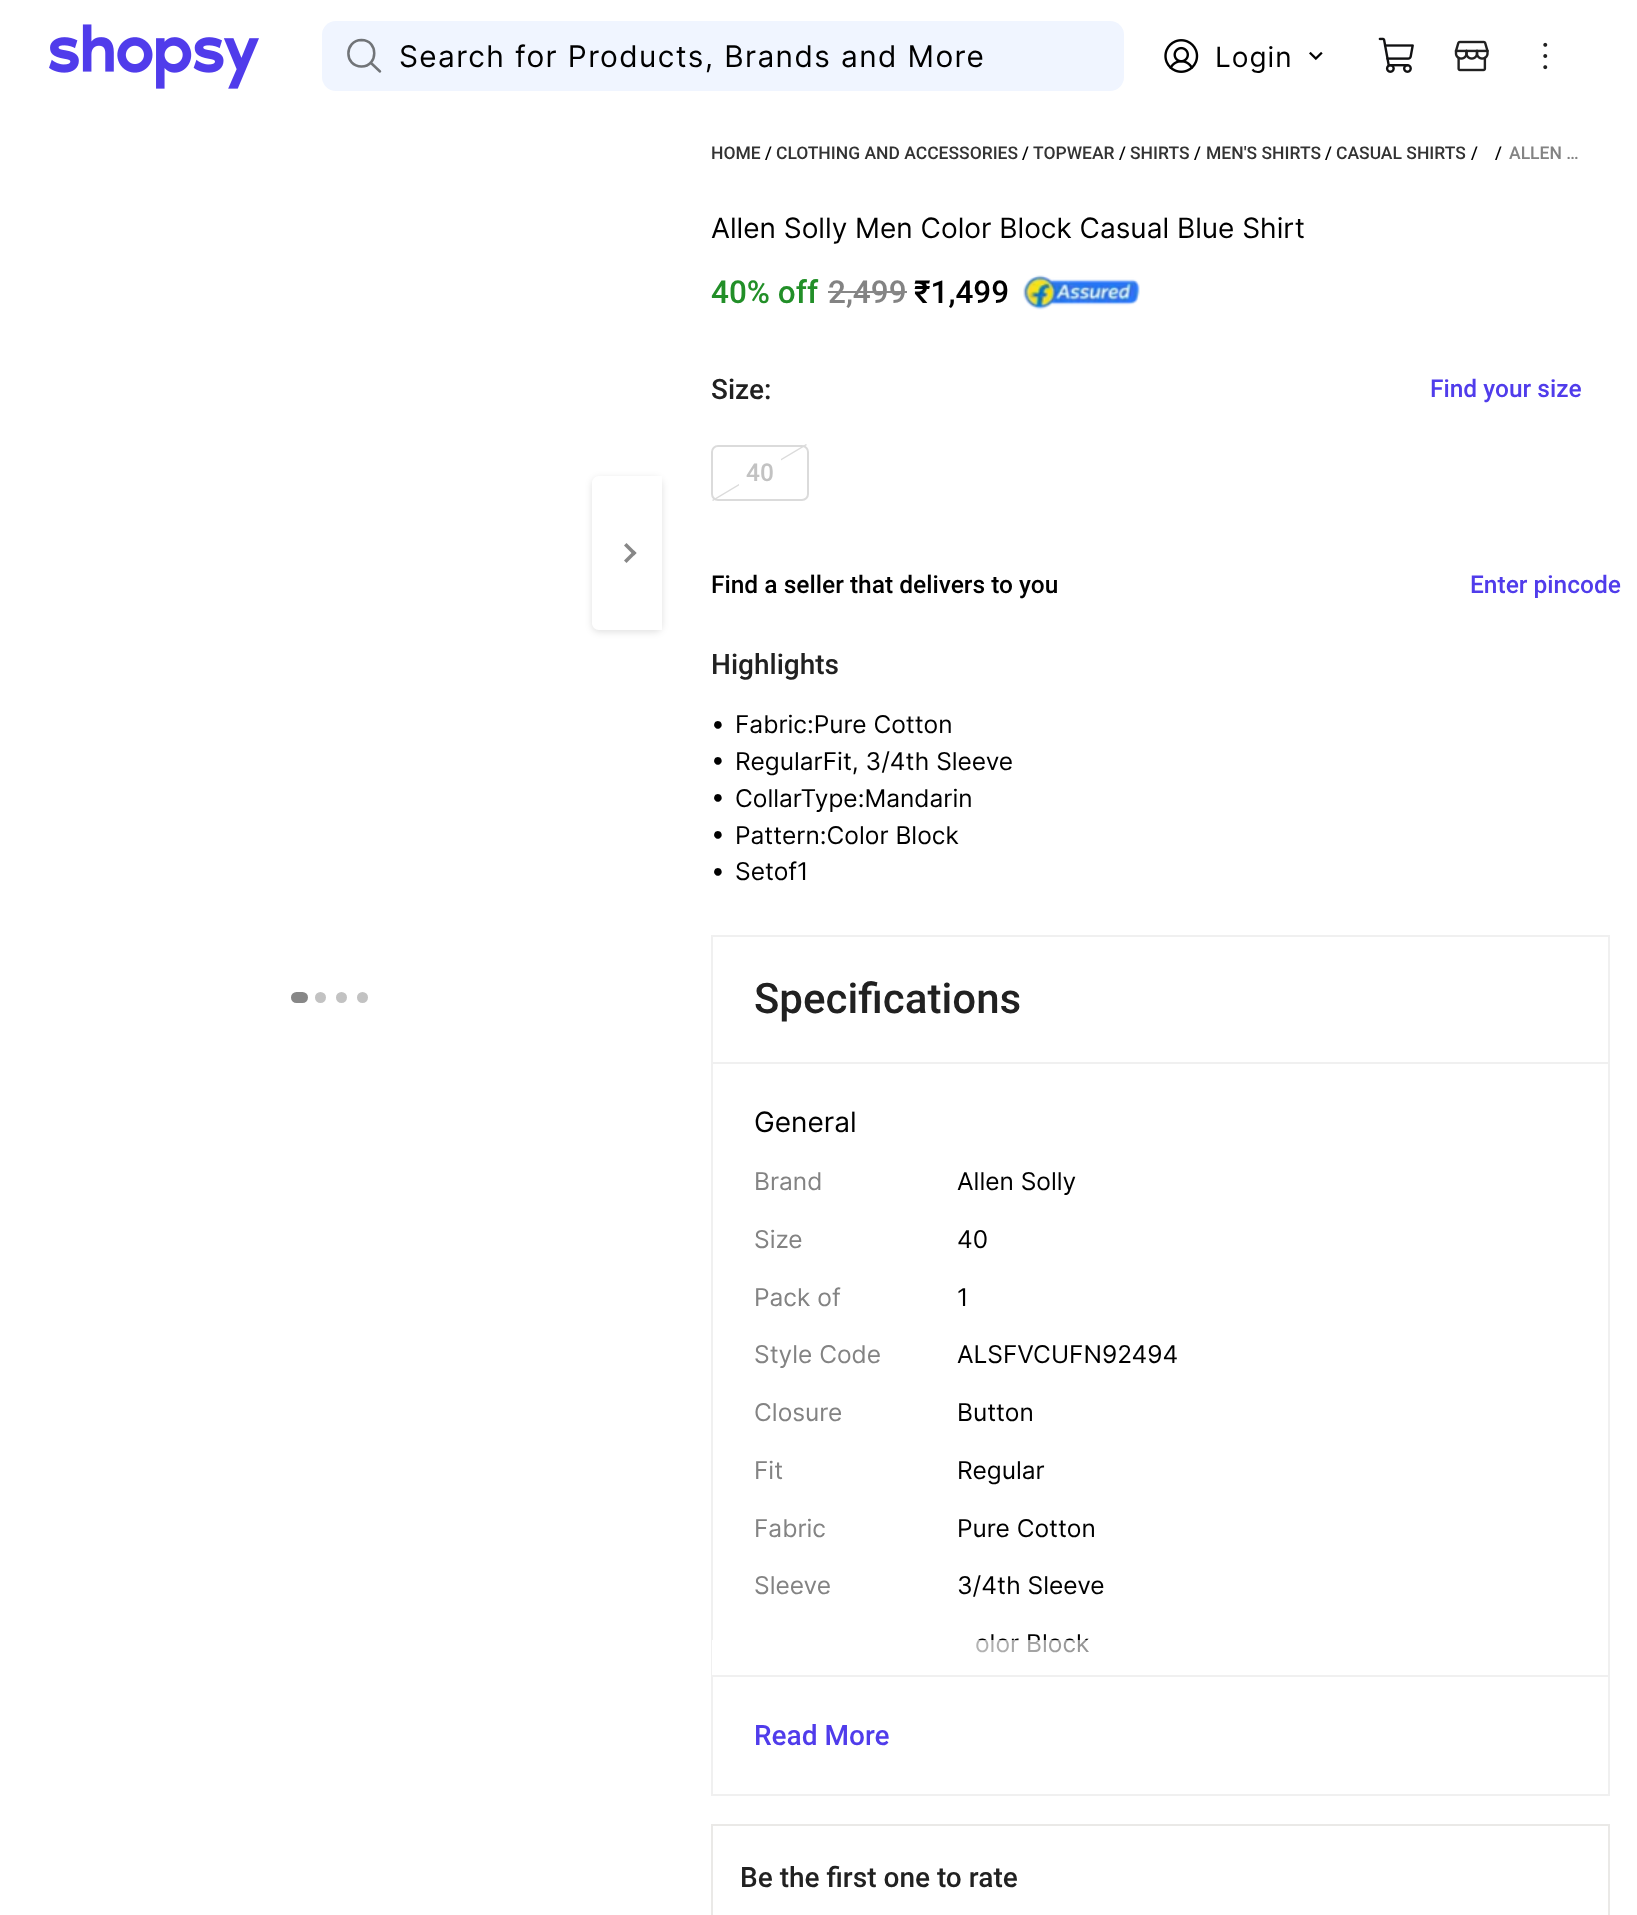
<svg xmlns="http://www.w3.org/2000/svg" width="1637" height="1915">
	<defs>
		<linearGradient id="g1" gradientUnits="userSpaceOnUse" x1="712" y1="1657" x2="1608" y2="1657"><stop offset="0" stop-color="#FFFFFF" /><stop offset="1" stop-color="#FFFFFF" stop-opacity="0" /></linearGradient>
	</defs>
	<rect width="100%" height="100%" fill="#FFFFFF" />
	<image x="49" y="24" width="210" height="65" href="assets/img1.png" />
	<rect x="322" y="21" width="802" height="70" rx="14" fill="#F0F5FF" />
	<path d="M361.5 66.5C378.5 66.5 378.5 40 361.5 40C344 40.5 344 66.5 361.5 66.5ZM370.5 62.5L380 71.5" fill="none" stroke="#717478" stroke-width="2.5" stroke-linecap="round" stroke-linejoin="round" />
	<text x="399" y="67" font-family="Inter" font-size="29.75" letter-spacing="1.4" fill="#000000">Search for Products, Brands and More</text>
	<image x="1164" y="39" width="35" height="34" href="assets/img2.png" />
	<text x="1215" y="67" font-family="Inter" font-size="28" letter-spacing="1" fill="#000000">Login</text>
	<image x="1309" y="51" width="14" height="10" href="assets/img3.png" />
	<image x="1378" y="37" width="36" height="36" href="assets/img4.png" />
	<image x="1454" y="40" width="35" height="32" href="assets/img5.png" />
	<image x="1543" y="42" width="5" height="28" href="assets/img6.png" />
	<rect x="592" y="478" width="70" height="154" rx="7" fill="#000000" fill-opacity="0.12" filter="blur(3.5px)" />
	<path d="M599 476H662V630H599C595 630 592 627 592 623V483C592 479 595 476 599 476Z" fill="#FFFFFF" />
	<path d="M626.5 543L636.5 553L634 555.5L624 545.5Z" fill="#878787" />
	<path d="M634 550.5L636.5 553L626.5 563L624 560.5Z" fill="#878787" />
	<rect x="291" y="992" width="17" height="11" rx="5.5" fill="#878787" />
	<circle cx="320.5" cy="997.5" r="5.5" fill="#C2C2C2" />
	<circle cx="341.5" cy="997.5" r="5.5" fill="#C2C2C2" />
	<circle cx="362.5" cy="997.5" r="5.5" fill="#C2C2C2" />
	<text x="711" y="159" font-family="Roboto" font-size="17.5" font-weight="500" fill="#333333">HOME</text>
	<text x="765" y="159" font-family="Roboto" font-size="17.5" font-weight="500" fill="#000000">/</text>
	<text x="776" y="159" font-family="Roboto" font-size="17.5" font-weight="500" fill="#333333">CLOTHING AND ACCESSORIES</text>
	<text x="1022" y="159" font-family="Roboto" font-size="17.5" font-weight="500" fill="#000000">/</text>
	<text x="1033" y="159" font-family="Roboto" font-size="17.5" font-weight="500" fill="#333333">TOPWEAR</text>
	<text x="1119" y="159" font-family="Roboto" font-size="17.5" font-weight="500" fill="#000000">/</text>
	<text x="1130" y="159" font-family="Roboto" font-size="17.5" font-weight="500" fill="#333333">SHIRTS</text>
	<text x="1194" y="159" font-family="Roboto" font-size="17.5" font-weight="500" fill="#000000">/</text>
	<text x="1206" y="159" font-family="Roboto" font-size="17.5" font-weight="500" fill="#333333">MEN'S SHIRTS</text>
	<text x="1325" y="159" font-family="Roboto" font-size="17.5" font-weight="500" fill="#000000">/</text>
	<text x="1336" y="159" font-family="Roboto" font-size="17.5" font-weight="500" fill="#333333">CASUAL SHIRTS</text>
	<g font-family="Roboto" font-size="17.5" font-weight="500" fill="#000000">
		<text x="1471" y="159">/</text>
		<text x="1495" y="159">/</text>
	</g>
	<text x="1509" y="159" font-family="Roboto" font-size="17.5" font-weight="500" fill="#838383">ALLEN …</text>
	<text x="711" y="238" font-family="Inter" font-size="28" fill="#000000">Allen Solly Men Color Block Casual Blue Shirt</text>
	<text x="711" y="303" font-family="Roboto" font-size="31.5" font-weight="500" fill="#228F28">40% off</text>
	<text x="828" y="303" font-family="Roboto" font-size="31.5" font-weight="500" fill="#838383">2,499</text>
	<rect x="828" y="291" width="79" height="2" fill="#878787" />
	<text x="914" y="303" font-family="Roboto" font-size="31.5" font-weight="500" fill="#000000">₹1,499</text>
	<image x="1023" y="275" width="117" height="35" href="assets/img7.png" />
	<text x="711" y="399" font-family="Roboto" font-size="28" font-weight="500" fill="#212121">Size:</text>
	<text x="1430" y="397" font-family="Roboto" font-size="24.5" font-weight="500" fill="#503CEB">Find your size</text>
	<rect x="712" y="446" width="96" height="54" rx="6" fill="none" stroke="#DBDBDB" stroke-width="2" />
	<path d="M712 500L806 444L807 445L713 501Z" fill="#DBDBDB" />
	<rect x="739" y="459" width="42" height="27" fill="#FFFFFF" />
	<text x="746" y="481" font-family="Roboto" font-size="24.5" font-weight="500" fill="#C2C2C2">40</text>
	<text x="711" y="593" font-family="Roboto" font-size="24.5" font-weight="500" fill="#000000">Find a seller that delivers to you</text>
	<text x="1470" y="593" font-family="Roboto" font-size="24.5" font-weight="500" fill="#503CEB">Enter pincode</text>
	<text x="711" y="674" font-family="Roboto" font-size="28" font-weight="500" fill="#212121">Highlights</text>
	<g font-family="Inter" font-size="24.5" fill="#000000">
		<text x="711" y="732">•</text>
		<text x="735" y="733">Fabric:Pure Cotton</text>
		<text x="711" y="768">•</text>
		<text x="735" y="770">RegularFit, 3/4th Sleeve</text>
		<text x="711" y="805">•</text>
		<text x="735" y="807">CollarType:Mandarin</text>
		<text x="711" y="842">•</text>
		<text x="735" y="844">Pattern:Color Block</text>
		<text x="711" y="879">•</text>
		<text x="735" y="880">Setof1</text>
	</g>
	<rect x="712" y="936" width="897" height="859" fill="none" stroke="#F0F0F0" stroke-width="2" />
	<text x="754" y="1013" font-family="Roboto" font-size="42" font-weight="500" fill="#212121">Specifications</text>
	<rect x="712" y="1062" width="896" height="2" fill="#F0F0F0" />
	<text x="754" y="1132" font-family="Inter" font-size="28" fill="#000000">General</text>
	<text x="754" y="1190" font-family="Inter" font-size="24.5" fill="#838383">Brand</text>
	<text x="957" y="1190" font-family="Inter" font-size="24.5" fill="#000000">Allen Solly</text>
	<text x="754" y="1248" font-family="Inter" font-size="24.5" fill="#838383">Size</text>
	<text x="957" y="1248" font-family="Inter" font-size="24.5" fill="#000000">40</text>
	<text x="754" y="1306" font-family="Inter" font-size="24.5" fill="#838383">Pack of</text>
	<text x="957" y="1306" font-family="Inter" font-size="24.5" fill="#000000">1</text>
	<text x="754" y="1363" font-family="Inter" font-size="24.5" fill="#838383">Style Code</text>
	<text x="957" y="1363" font-family="Inter" font-size="24.5" fill="#000000">ALSFVCUFN92494</text>
	<text x="754" y="1421" font-family="Inter" font-size="24.5" fill="#838383">Closure</text>
	<text x="957" y="1421" font-family="Inter" font-size="24.5" fill="#000000">Button</text>
	<text x="754" y="1479" font-family="Inter" font-size="24.5" fill="#838383">Fit</text>
	<text x="957" y="1479" font-family="Inter" font-size="24.5" fill="#000000">Regular</text>
	<text x="754" y="1537" font-family="Inter" font-size="24.5" fill="#838383">Fabric</text>
	<text x="957" y="1537" font-family="Inter" font-size="24.5" fill="#000000">Pure Cotton</text>
	<text x="754" y="1594" font-family="Inter" font-size="24.5" fill="#838383">Sleeve</text>
	<g font-family="Inter" font-size="24.5" fill="#000000">
		<text x="957" y="1594">3/4th Sleeve</text>
		<text x="975" y="1652">olor Block</text>
	</g>
	<rect x="712" y="1640" width="377" height="35" fill="url(#g1)" />
	<rect x="712" y="1675" width="896" height="2" fill="#F0F0F0" />
	<text x="754" y="1745" font-family="Roboto" font-size="28" font-weight="500" fill="#503CEB">Read More</text>
	<rect x="711" y="1824" width="899" height="2" fill="#EAE9E7" />
	<rect x="1608" y="1824" width="2" height="91" fill="#EAE9E7" />
	<rect x="711" y="1824" width="2" height="91" fill="#EAE9E7" />
	<text x="740" y="1887" font-family="Roboto" font-size="28" font-weight="500" fill="#212121">Be the first one to rate</text>
</svg>
